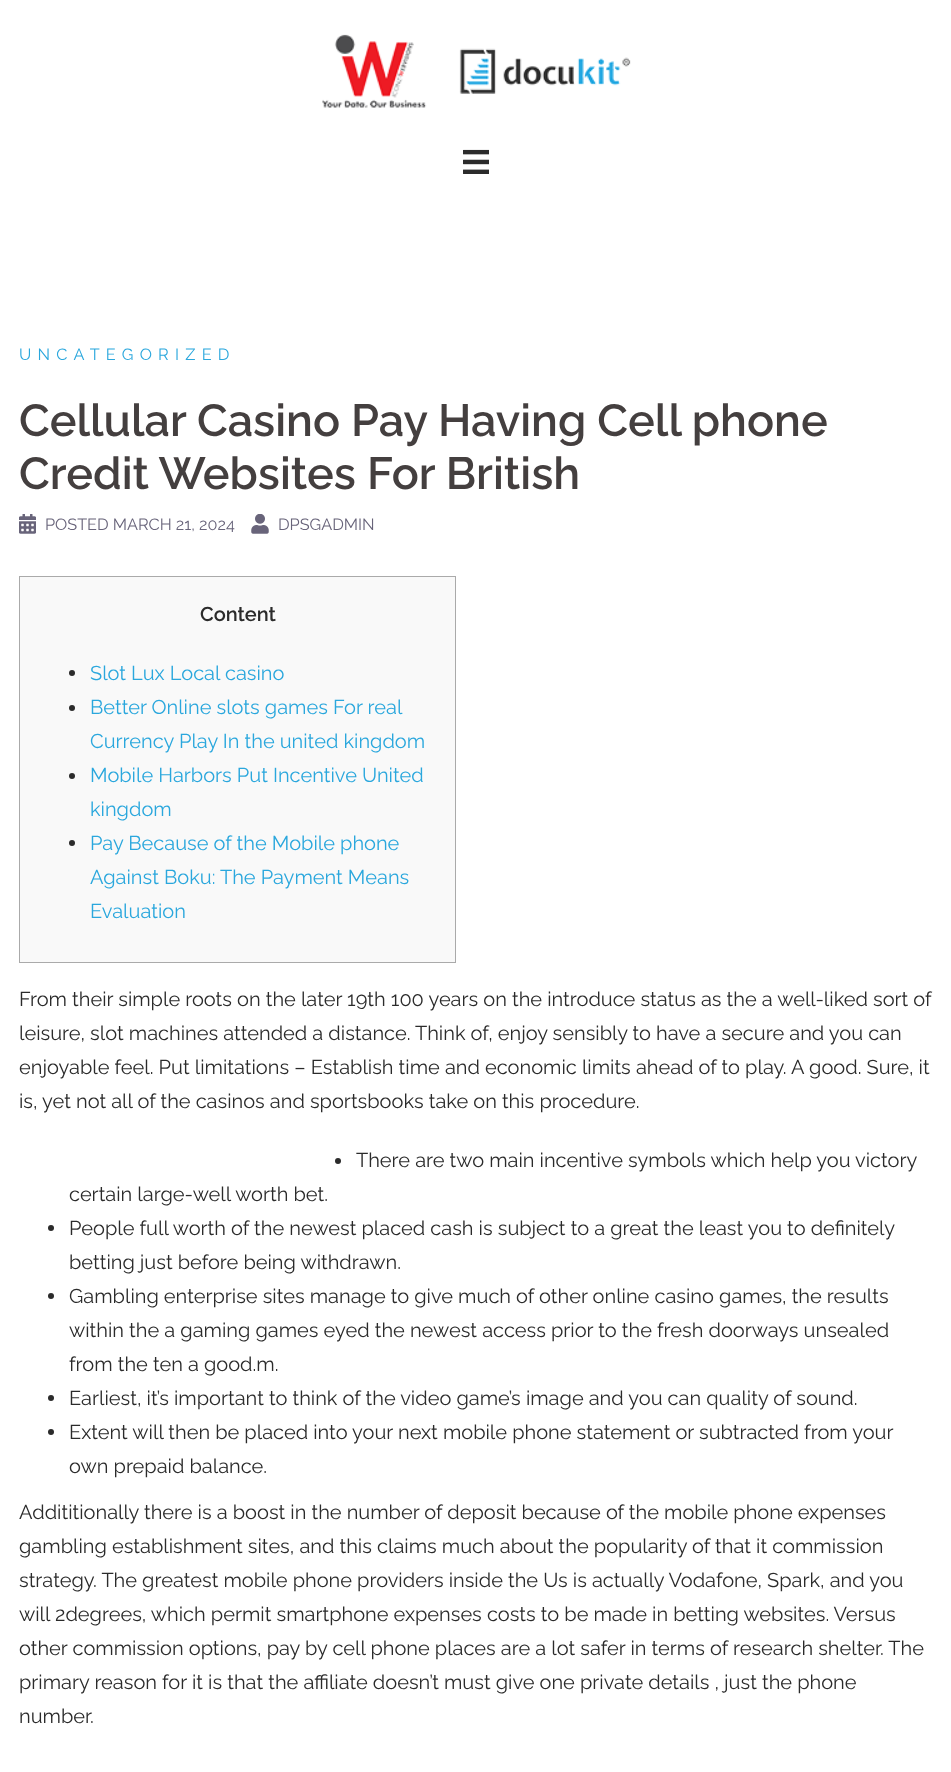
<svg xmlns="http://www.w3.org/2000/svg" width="951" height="1772">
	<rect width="100%" height="100%" fill="#FFFFFF" />
	<image x="322" y="34" width="309" height="74" href="assets/img1.png" />
	<image x="463" y="149" width="26" height="25" href="assets/img2.png" />
	<text x="19" y="360" font-family="Raleway" font-size="16.25" letter-spacing="6.25" fill="#2AA7DD">UNCATEGORIZED</text>
	<g font-family="Raleway" font-size="45" font-weight="600" fill="#443F3F">
		<text x="19" y="436">Cellular Casino Pay Having Cell phone</text>
		<text x="19" y="489">Credit Websites For British</text>
	</g>
	<image x="19" y="514" width="17" height="20" href="assets/img3.png" />
	<text x="45" y="530" font-family="Raleway" font-size="16.25" fill="#68647A">POSTED MARCH 21, 2024</text>
	<image x="251" y="514" width="18" height="20" href="assets/img4.png" />
	<text x="278" y="530" font-family="Raleway" font-size="16.25" fill="#68647A">DPSGADMIN</text>
	<rect x="19.5" y="576.5" width="436" height="386" fill="#F9F9F9" stroke="#AAAAAA" />
	<text x="200" y="621" font-family="Raleway" font-size="20" font-weight="600" fill="#2B2B2B">Content</text>
	<circle cx="72" cy="673" r="3" fill="#2B2B2B" />
	<text x="90" y="680" font-family="Raleway" font-size="20" fill="#2AA7DD">Slot Lux Local casino</text>
	<circle cx="72" cy="708" r="3" fill="#2B2B2B" />
	<g font-family="Raleway" font-size="20" fill="#2AA7DD">
		<text x="90" y="714">Better Online slots games For real</text>
		<text x="90" y="748">Currency Play In the united kingdom</text>
	</g>
	<circle cx="72" cy="776" r="3" fill="#2B2B2B" />
	<g font-family="Raleway" font-size="20" fill="#2AA7DD">
		<text x="90" y="782">Mobile Harbors Put Incentive United</text>
		<text x="90" y="816">kingdom</text>
	</g>
	<circle cx="72" cy="843" r="3" fill="#2B2B2B" />
	<g font-family="Raleway" font-size="20" fill="#2AA7DD">
		<text x="90" y="850">Pay Because of the Mobile phone</text>
		<text x="90" y="884">Against Boku: The Payment Means</text>
		<text x="90" y="918">Evaluation</text>
	</g>
	<g font-family="Raleway" font-size="20" fill="#2B2B2B">
		<text x="19" y="1006">From their simple roots on the later 19th 100 years on the introduce status as the a well-liked sort of</text>
		<text x="19" y="1040">leisure, slot machines attended a distance. Think of, enjoy sensibly to have a secure and you can</text>
		<text x="19" y="1074">enjoyable feel. Put limitations – Establish time and economic limits ahead of to play. A good. Sure, it</text>
		<text x="19" y="1108">is, yet not all of the casinos and sportsbooks take on this procedure.</text>
	</g>
	<circle cx="338" cy="1161" r="3" fill="#2B2B2B" />
	<g font-family="Raleway" font-size="20" fill="#2B2B2B">
		<text x="356" y="1167">There are two main incentive symbols which help you victory</text>
		<text x="69" y="1201">certain large-well worth bet.</text>
	</g>
	<circle cx="51" cy="1228" r="3" fill="#2B2B2B" />
	<g font-family="Raleway" font-size="20" fill="#2B2B2B">
		<text x="69" y="1235">People full worth of the newest placed cash is subject to a great the least you to definitely</text>
		<text x="69" y="1269">betting just before being withdrawn.</text>
	</g>
	<circle cx="51" cy="1296" r="3" fill="#2B2B2B" />
	<g font-family="Raleway" font-size="20" fill="#2B2B2B">
		<text x="69" y="1303">Gambling enterprise sites manage to give much of other online casino games, the results</text>
		<text x="69" y="1337">within the a gaming games eyed the newest access prior to the fresh doorways unsealed</text>
		<text x="69" y="1371">from the ten a good.m.</text>
	</g>
	<circle cx="51" cy="1398" r="3" fill="#2B2B2B" />
	<text x="69" y="1405" font-family="Raleway" font-size="20" fill="#2B2B2B">Earliest, it’s important to think of the video game’s image and you can quality of sound.</text>
	<circle cx="51" cy="1432" r="3" fill="#2B2B2B" />
	<g font-family="Raleway" font-size="20" fill="#2B2B2B">
		<text x="69" y="1439">Extent will then be placed into your next mobile phone statement or subtracted from your</text>
		<text x="69" y="1473">own prepaid balance.</text>
		<text x="19" y="1519">Addititionally there is a boost in the number of deposit because of the mobile phone expenses</text>
		<text x="19" y="1553">gambling establishment sites, and this claims much about the popularity of that it commission</text>
		<text x="19" y="1587">strategy. The greatest mobile phone providers inside the Us is actually Vodafone, Spark, and you</text>
		<text x="19" y="1621">will 2degrees, which permit smartphone expenses costs to be made in betting websites. Versus</text>
		<text x="19" y="1655">other commission options, pay by cell phone places are a lot safer in terms of research shelter. The</text>
		<text x="19" y="1689">primary reason for it is that the affiliate doesn’t must give one private details , just the phone</text>
		<text x="19" y="1723">number.</text>
	</g>
</svg>
